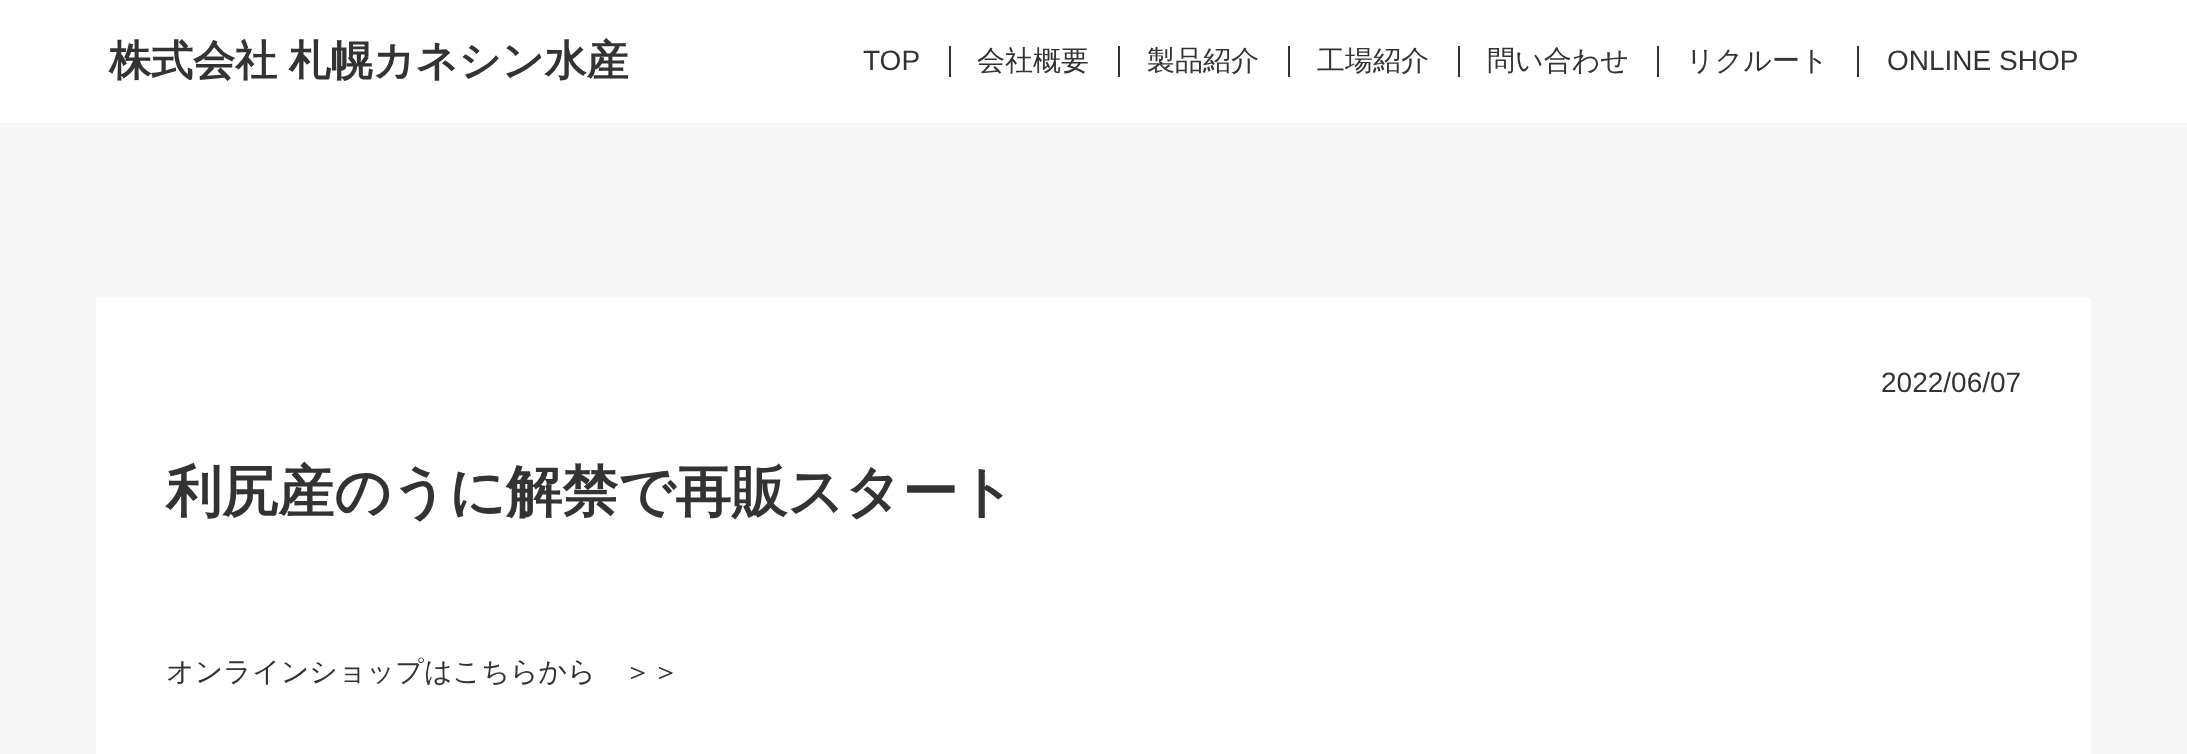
<svg xmlns="http://www.w3.org/2000/svg" width="2187" height="754">
	<rect width="100%" height="100%" fill="#FFFFFF" />
	<text x="109" y="75" word-spacing="-1" font-family="WenQuanYi Zen Hei" font-size="42" font-weight="700" fill="#333333">株式会社 札幌カネシン水産</text>
	<rect x="949" y="46" width="2" height="31" fill="#333333" />
	<text x="863" y="70" font-family="Liberation Sans" font-size="28" fill="#333333">TOP</text>
	<rect x="1118" y="46" width="2" height="31" fill="#333333" />
	<text x="977" y="70" font-family="WenQuanYi Zen Hei" font-size="28" font-weight="500" fill="#333333">会社概要</text>
	<rect x="1288" y="46" width="2" height="31" fill="#333333" />
	<text x="1147" y="70" font-family="WenQuanYi Zen Hei" font-size="28" font-weight="500" fill="#333333">製品紹介</text>
	<rect x="1458" y="46" width="2" height="31" fill="#333333" />
	<text x="1317" y="70" font-family="WenQuanYi Zen Hei" font-size="28" font-weight="500" fill="#333333">工場紹介</text>
	<rect x="1657" y="46" width="2" height="31" fill="#333333" />
	<text x="1487" y="70" font-family="WenQuanYi Zen Hei" font-size="28" font-weight="500" fill="#333333">問い合わせ</text>
	<rect x="1857" y="46" width="2" height="31" fill="#333333" />
	<text x="1686" y="70" font-family="WenQuanYi Zen Hei" font-size="28" font-weight="500" fill="#333333">リクルート</text>
	<text x="1887" y="70" font-family="Liberation Sans" font-size="28" fill="#333333">ONLINE SHOP</text>
	<rect x="0" y="123" width="2187" height="631" fill="#F7F7F7" />
	<rect x="96" y="298" width="1995" height="456" fill="#FFFFFF" />
	<text x="1881" y="392" font-family="Liberation Sans" font-size="28" fill="#333333">2022/06/07</text>
	<text x="166" y="511" font-family="WenQuanYi Zen Hei" font-size="56" font-weight="700" fill="#333333">利尻産のうに解禁で再販スタート</text>
	<text x="166" y="681" font-family="WenQuanYi Zen Hei" font-size="28" font-weight="500" fill="#333333">オンラインショップはこちらから　＞＞</text>
</svg>
